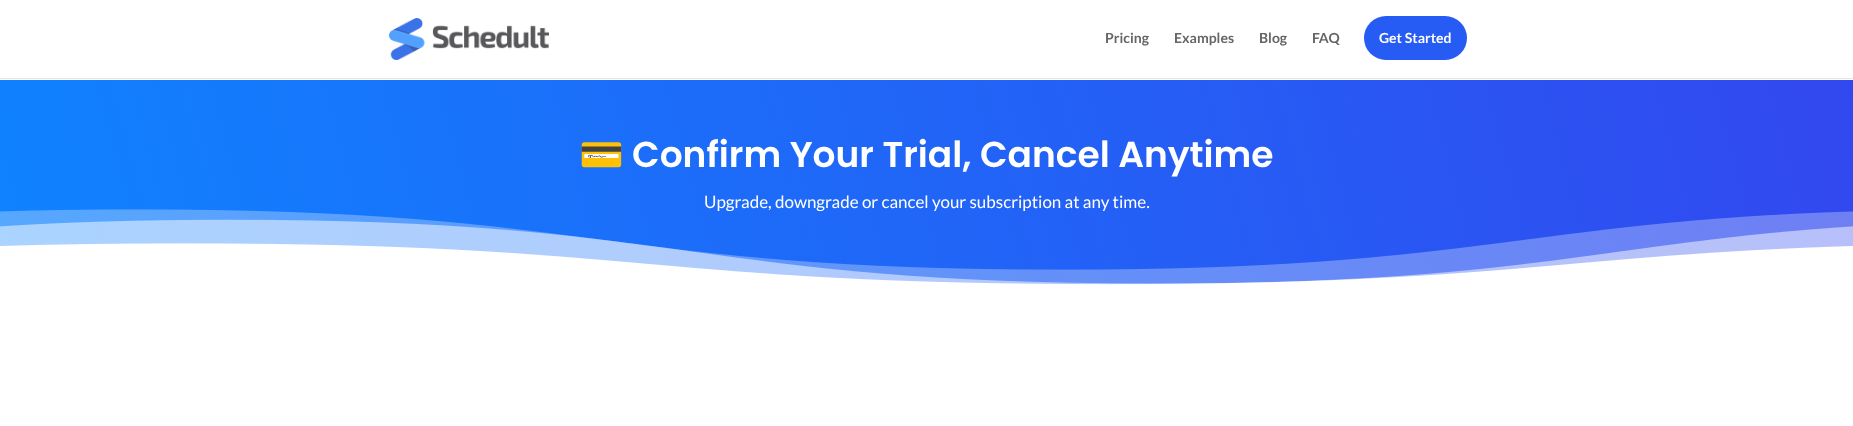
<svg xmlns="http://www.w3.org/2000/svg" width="1853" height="426">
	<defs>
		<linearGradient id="g1" gradientUnits="userSpaceOnUse" x1="33" y1="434" x2="1820" y2="-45"><stop offset="0" stop-color="#0F83FF" /><stop offset="1" stop-color="#3248EF" /></linearGradient>
	</defs>
	<rect width="100%" height="100%" fill="#FFFFFF" />
	<rect x="0" y="78" width="1853" height="1" fill="#E6E6E6" />
	<image x="389" y="18" width="160" height="42" href="assets/img1.png" />
	<g font-family="Lato" font-size="14" font-weight="700" fill="#666666">
		<text x="1105" y="43">Pricing</text>
		<text x="1174" y="43">Examples</text>
		<text x="1259" y="43">Blog</text>
		<text x="1312" y="43">FAQ</text>
	</g>
	<rect x="1364" y="16" width="103" height="44" rx="22" fill="#265BF4" />
	<text x="1379" y="43" font-family="Lato" font-size="14" font-weight="700" fill="#FFFFFF">Get Started</text>
	<rect x="0" y="80" width="1853" height="205" fill="url(#g1)" />
	<text x="579" y="167" font-family="Noto Color Emoji" font-size="36" font-weight="700" fill="#FFFFFF">💳</text>
	<text x="632" y="167" font-family="Poppins" font-size="36" font-weight="600" fill="#FFFFFF">Confirm Your Trial, Cancel Anytime</text>
	<image x="0" y="209" width="1853" height="100" href="assets/img2.png" />
	<text x="704" y="208" font-family="Lato" font-size="17" fill="#FFFFFF">Upgrade, downgrade or cancel your subscription at any time.</text>
</svg>
